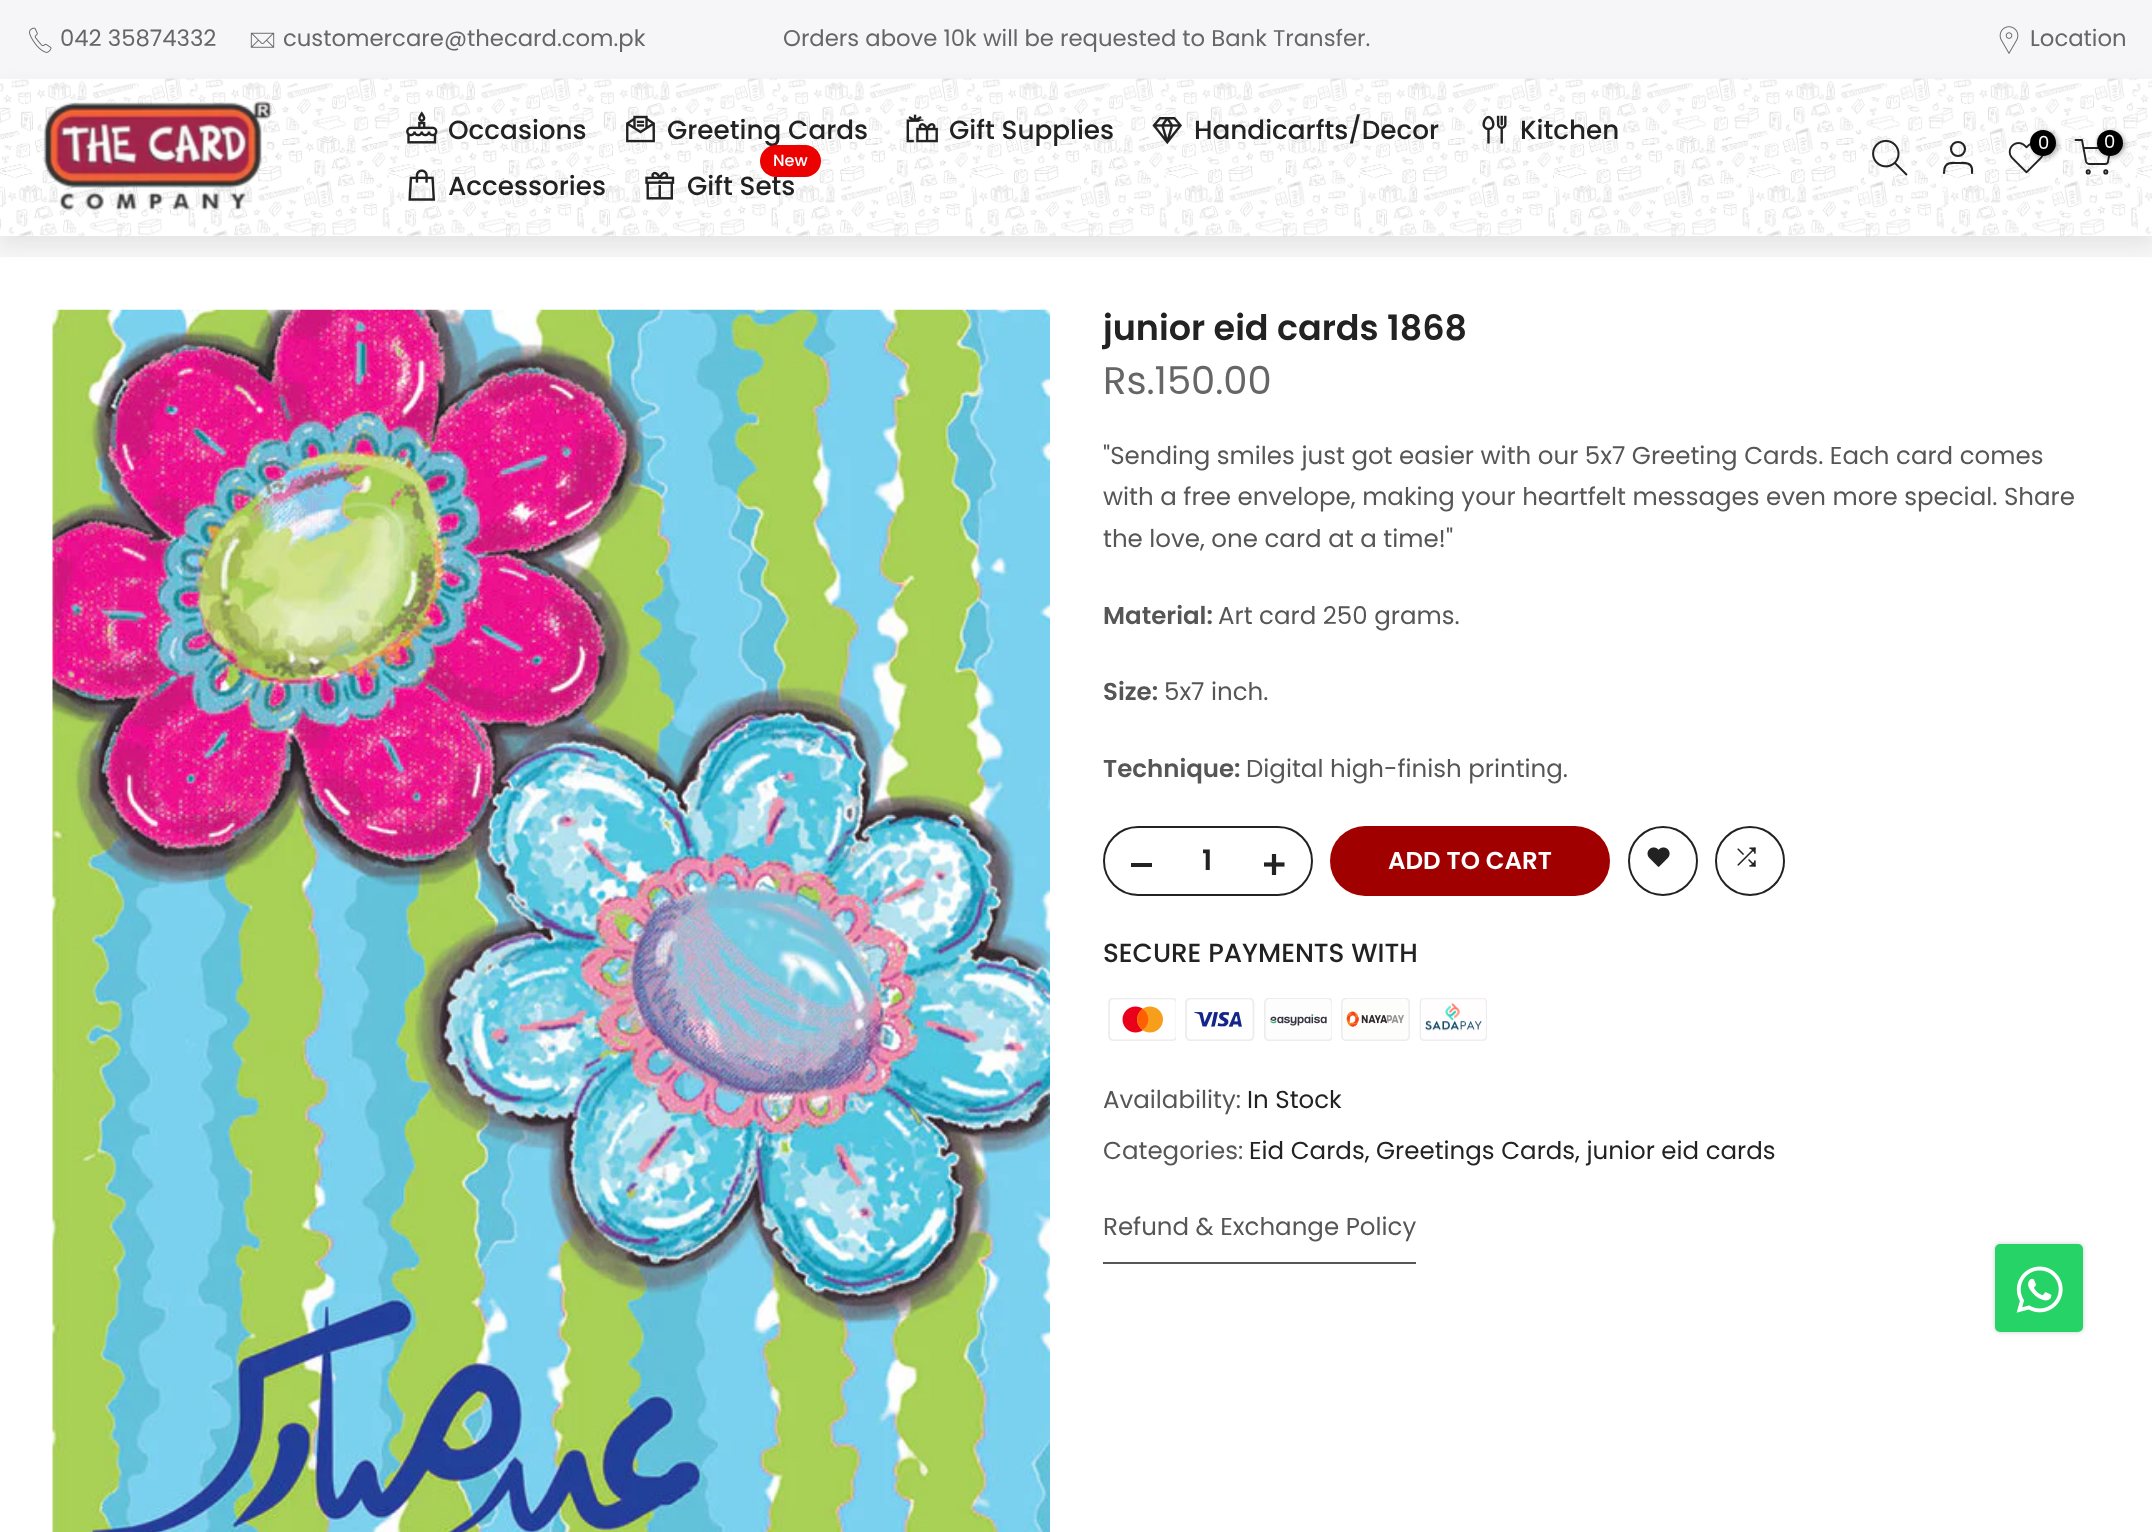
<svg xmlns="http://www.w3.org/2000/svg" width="2152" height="1532">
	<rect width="100%" height="100%" fill="#FFFFFF" />
	<rect x="0" y="0" width="2152" height="79" fill="#F6F6F8" />
	<image x="29" y="27" width="23" height="26" href="assets/img1.png" />
	<text x="60" y="46" font-family="Poppins" font-size="22.75" fill="#666666">042 35874332</text>
	<image x="250" y="32" width="25" height="16" href="assets/img2.png" />
	<g font-family="Poppins" font-size="22.75" fill="#666666">
		<text x="283" y="46">customercare@thecard.com.pk</text>
		<text x="783" y="46">Orders above 10k will be requested to Bank Transfer.</text>
	</g>
	<image x="1999" y="26" width="20" height="28" href="assets/img3.png" />
	<text x="2030" y="46" font-family="Poppins" font-size="22.75" fill="#666666">Location</text>
	<rect x="0" y="236" width="2152" height="21" fill="#F6F6F6" />
	<rect x="0" y="88" width="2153" height="157" fill="#E5E5E5" filter="blur(9px)" />
	<rect x="0" y="79" width="2152" height="157" fill="#FFFFFF" />
	<image x="0" y="78" width="2152" height="159" href="assets/img4.png" />
	<image x="43" y="101" width="229" height="110" href="assets/img5.png" />
	<image x="406" y="111" width="32" height="33" href="assets/img6.png" />
	<text x="448" y="139" font-family="Poppins" font-size="26.25" font-weight="500" fill="#222222">Occasions</text>
	<image x="626" y="115" width="29" height="28" href="assets/img7.png" />
	<text x="667" y="139" font-family="Poppins" font-size="26.25" font-weight="500" fill="#222222">Greeting Cards</text>
	<image x="906" y="114" width="32" height="29" href="assets/img8.png" />
	<text x="949" y="139" font-family="Poppins" font-size="26.25" font-weight="500" fill="#222222">Gift Supplies</text>
	<image x="1152" y="117" width="30" height="28" href="assets/img9.png" />
	<text x="1194" y="139" font-family="Poppins" font-size="26.25" font-weight="500" fill="#222222">Handicarfts/Decor</text>
	<image x="1482" y="115" width="25" height="29" href="assets/img10.png" />
	<text x="1520" y="139" font-family="Poppins" font-size="26.25" font-weight="500" fill="#222222">Kitchen</text>
	<image x="408" y="169" width="28" height="32" href="assets/img11.png" />
	<g font-family="Poppins" font-size="26.25" font-weight="500" fill="#222222">
		<text x="448" y="195">Accessories</text>
		<text x="687" y="195">Gift Sets</text>
	</g>
	<rect x="760" y="145" width="61" height="32" rx="16" fill="#EC0101" />
	<text x="773" y="166" font-family="Poppins" font-size="16" font-weight="500" fill="#FFFFFF">New</text>
	<image x="645" y="171" width="30" height="29" href="assets/img12.png" />
	<image x="1872" y="139" width="36" height="37" href="assets/img13.png" />
	<circle cx="1958" cy="149" r="7" fill="none" stroke="#222222" stroke-width="2.1" />
	<path d="M1972 173V168.5C1970.5 161.5 1963.5 163 1958 163C1953 163 1946 161.5 1944.5 168.5L1944 173" fill="none" stroke="#222222" stroke-width="2.1" stroke-linecap="round" stroke-linejoin="round" />
	<image x="2008" y="142" width="36" height="32" href="assets/img14.png" />
	<rect x="2032" y="131" width="26" height="27" rx="13" fill="#000000" fill-opacity="0.3" filter="blur(2.5px)" />
	<circle cx="2043" cy="143" r="13" fill="#000000" />
	<text x="2038" y="149" font-family="Poppins" font-size="18" fill="#FFFFFF">0</text>
	<path d="M2075.5 140H2082L2086 161.5C2086.5 163 2087.5 164 2089.5 164H2105C2106.5 164 2108 163 2108 161.5L2110.5 148H2083.5" fill="none" stroke="#222222" stroke-width="1.9" stroke-linecap="round" stroke-linejoin="round" />
	<rect x="2098" y="131" width="27" height="27" rx="13.5" fill="#000000" fill-opacity="0.3" filter="blur(2.5px)" />
	<circle cx="2110" cy="143" r="13" fill="#000000" />
	<text x="2104" y="148" font-family="Poppins" font-size="18" fill="#FFFFFF">0</text>
	<circle cx="2088.2" cy="171.9" r="1.6" fill="none" stroke="#222222" stroke-width="1.9" />
	<circle cx="2105.8" cy="171.9" r="1.6" fill="none" stroke="#222222" stroke-width="1.9" />
	<image x="52" y="309" width="998" height="1223" href="assets/img15.png" />
	<text x="1103" y="340" font-family="Poppins" font-size="35" font-weight="600" fill="#222222">junior eid cards 1868</text>
	<text x="1103" y="394" font-family="Poppins" font-size="38.5" fill="#666666">Rs.150.00</text>
	<g font-family="Poppins" font-size="24.5" fill="#565656">
		<text x="1103" y="464">"Sending smiles just got easier with our 5x7 Greeting Cards. Each card comes</text>
		<text x="1103" y="505">with a free envelope, making your heartfelt messages even more special. Share</text>
		<text x="1103" y="547">the love, one card at a time!"</text>
	</g>
	<text x="1103" y="624" font-family="Poppins" font-size="24.5" font-weight="600" fill="#565656">Material:</text>
	<text x="1218" y="624" font-family="Poppins" font-size="24.5" fill="#565656">Art card 250 grams.</text>
	<text x="1103" y="700" font-family="Poppins" font-size="24.5" font-weight="600" fill="#565656">Size:</text>
	<text x="1164" y="700" font-family="Poppins" font-size="24.5" fill="#565656">5x7 inch.</text>
	<text x="1103" y="777" font-family="Poppins" font-size="24.5" font-weight="600" fill="#565656">Technique:</text>
	<text x="1246" y="777" font-family="Poppins" font-size="24.5" fill="#565656">Digital high-finish printing.</text>
	<rect x="1104" y="827" width="208" height="68" rx="34" fill="none" stroke="#222222" stroke-width="2" />
	<rect x="1131" y="863" width="21" height="4" fill="#222222" />
	<text x="1202" y="870" font-family="Poppins" font-size="28" font-weight="600" fill="#222222">1</text>
	<image x="1264" y="854" width="21" height="21" href="assets/img16.png" />
	<rect x="1330" y="826" width="280" height="70" rx="35" fill="#A10000" />
	<text x="1388" y="869" font-family="Poppins" font-size="24.5" font-weight="600" fill="#FFFFFF">ADD TO CART</text>
	<circle cx="1663" cy="861" r="34" fill="none" stroke="#222222" stroke-width="2" />
	<image x="1647" y="847" width="23" height="20" href="assets/img17.png" />
	<circle cx="1750" cy="861" r="34" fill="none" stroke="#222222" stroke-width="2" />
	<image x="1737" y="847" width="19" height="20" href="assets/img18.png" />
	<text x="1103" y="962" font-family="Poppins" font-size="26.25" font-weight="500" fill="#222222">SECURE PAYMENTS WITH</text>
	<image x="1108" y="998" width="68" height="43" href="assets/img19.png" />
	<image x="1185" y="998" width="70" height="43" href="assets/img20.png" />
	<image x="1264" y="998" width="68" height="43" href="assets/img21.png" />
	<image x="1341" y="998" width="69" height="43" href="assets/img22.png" />
	<image x="1419" y="998" width="68" height="43" href="assets/img23.png" />
	<text x="1103" y="1108" font-family="Poppins" font-size="24.5" fill="#565656">Availability:</text>
	<text x="1247" y="1108" font-family="Poppins" font-size="24.5" fill="#222222">In Stock</text>
	<text x="1103" y="1159" font-family="Poppins" font-size="24.5" fill="#565656">Categories:</text>
	<text x="1249" y="1159" font-family="Poppins" font-size="24.5" fill="#222222">Eid Cards, Greetings Cards, junior eid cards</text>
	<text x="1103" y="1235" font-family="Poppins" font-size="24.5" fill="#565656">Refund &amp; Exchange Policy</text>
	<rect x="1103" y="1262" width="313" height="2" fill="#565656" />
	<rect x="1995" y="1244" width="88" height="88" rx="5" fill="#000000" fill-opacity="0.2" filter="blur(2.5px)" />
	<rect x="1995" y="1244" width="88" height="88" rx="5" fill="#25D366" />
	<image x="2016" y="1266" width="47" height="47" href="assets/img24.png" />
</svg>
